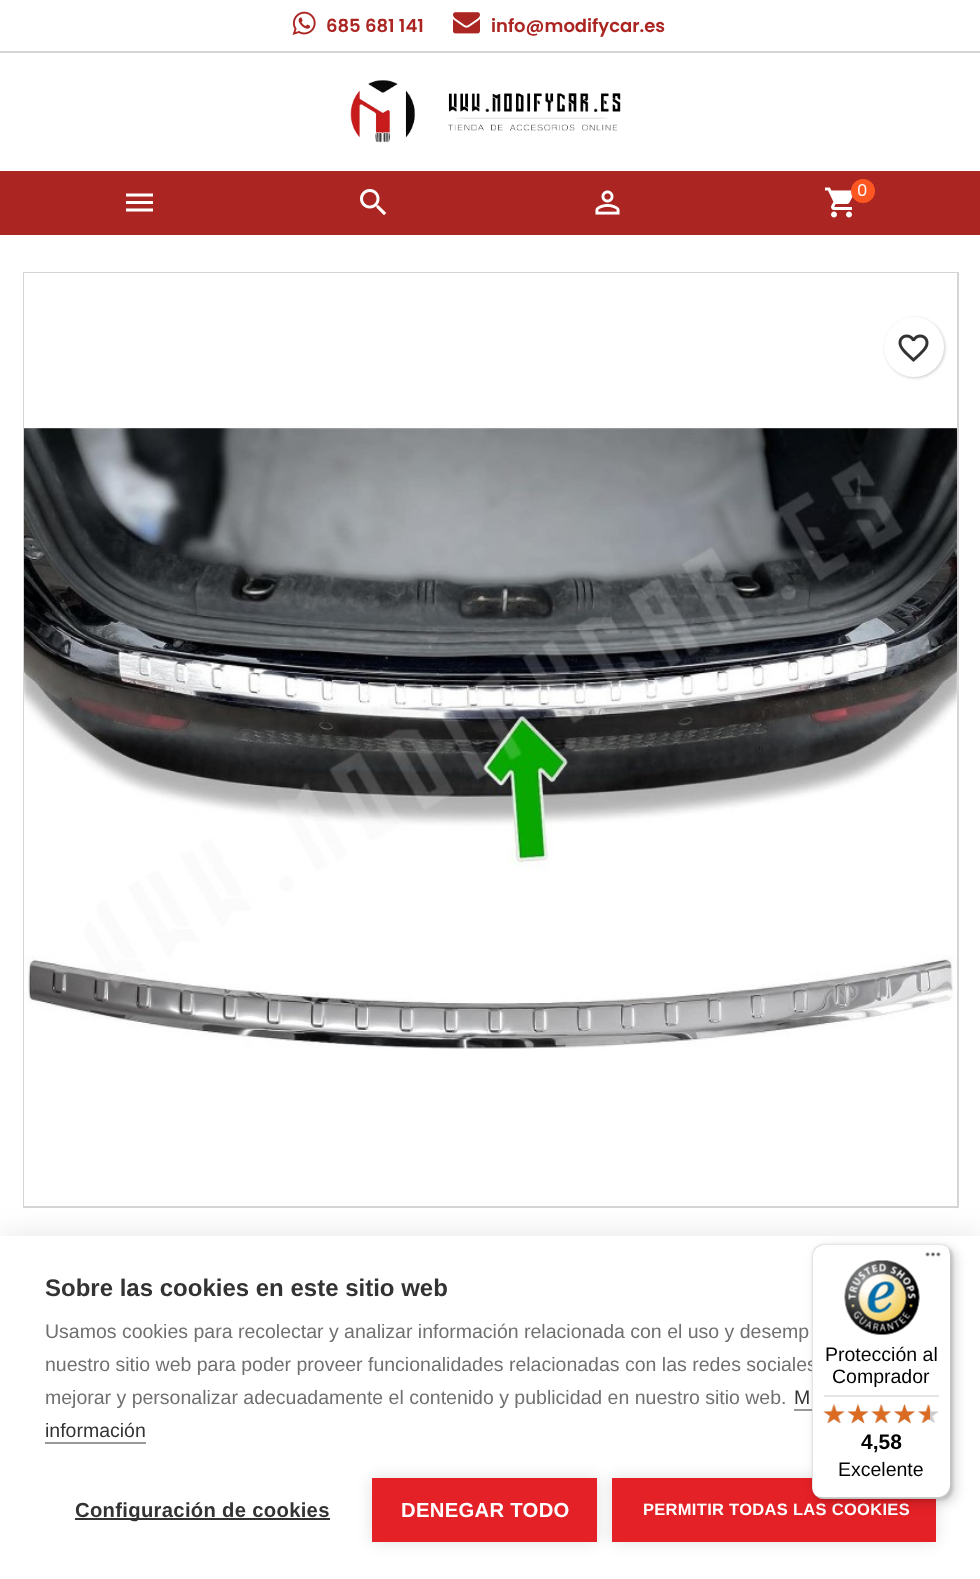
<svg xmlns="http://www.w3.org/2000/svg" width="980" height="1579">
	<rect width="100%" height="100%" fill="#FFFFFF" />
	<rect x="0" y="51" width="980" height="2" fill="#D6D4D4" />
	<image x="292" y="11" width="24" height="24" href="assets/img1.png" />
	<text x="326" y="32" font-family="Poppins" font-size="18" font-weight="600" fill="#AB2622">685 681 141</text>
	<image x="453" y="12" width="27" height="22" href="assets/img2.png" />
	<text x="491" y="32" font-family="Poppins" font-size="18" font-weight="600" fill="#AB2622">info@modifycar.es</text>
	<image x="350" y="80" width="271" height="63" href="assets/img3.png" />
	<rect x="0" y="171" width="980" height="64" fill="#AB2622" />
	<image x="126" y="193" width="27" height="19" href="assets/img4.png" />
	<image x="360" y="189" width="27" height="27" href="assets/img5.png" />
	<image x="595" y="190" width="25" height="25" href="assets/img6.png" />
	<image x="824" y="187" width="29" height="31" href="assets/img7.png" />
	<circle cx="863" cy="191" r="12" fill="#FF5722" />
	<text x="857" y="196" font-family="Poppins" font-size="16.5" fill="#FFFFFF">0</text>
	<rect x="24" y="273" width="934" height="934" fill="none" stroke="#D6D4D4" stroke-width="2" />
	<rect x="24" y="273" width="933" height="933" fill="#FFFFFF" />
	<image x="24" y="427" width="933" height="622" href="assets/img8.png" />
	<rect x="885" y="318" width="60" height="60" rx="30" fill="#000000" fill-opacity="0.2" filter="blur(1.5px)" />
	<circle cx="914" cy="347" r="30" fill="#FFFFFF" />
	<image x="898" y="334" width="31" height="28" href="assets/img9.png" />
	<rect x="0" y="1236" width="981" height="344" fill="#000000" fill-opacity="0.1" filter="blur(15px)" />
	<rect x="0" y="1236" width="980" height="343" fill="#FFFFFF" />
	<text x="45" y="1296" font-family="Liberation Sans" font-size="24" font-weight="700" fill="#333333">Sobre las cookies en este sitio web</text>
	<g font-family="Liberation Sans" font-size="19.5" fill="#707070">
		<text x="45" y="1338">Usamos cookies para recolectar y analizar información relacionada con el uso y desemp</text>
		<text x="45" y="1371">nuestro sitio web para poder proveer funcionalidades relacionadas con las redes sociales</text>
		<text x="45" y="1404">mejorar y personalizar adecuadamente el contenido y publicidad en nuestro sitio web.</text>
	</g>
	<text x="794" y="1404" font-family="Liberation Sans" font-size="19.5" fill="#333333">M</text>
	<rect x="794" y="1409" width="18" height="2" fill="#999999" />
	<text x="45" y="1437" font-family="Liberation Sans" font-size="19.5" fill="#333333">información</text>
	<rect x="45" y="1442" width="101" height="2" fill="#999999" />
	<rect x="75" y="1518" width="255" height="2" fill="#333333" />
	<text x="75" y="1517" font-family="Liberation Sans" font-size="20.25" font-weight="700" letter-spacing="0.3" fill="#333333">Configuración de cookies</text>
	<rect x="372" y="1478" width="225" height="64" fill="#000000" fill-opacity="0.12" filter="blur(7.5px)" />
	<rect x="372" y="1478" width="225" height="64" fill="#E42127" />
	<text x="401" y="1517" font-family="Liberation Sans" font-size="20.25" font-weight="700" letter-spacing="0.3" fill="#FFFFFF">DENEGAR TODO</text>
	<rect x="612" y="1478" width="324" height="64" fill="#000000" fill-opacity="0.12" filter="blur(7.5px)" />
	<rect x="612" y="1478" width="324" height="64" fill="#E42127" />
	<text x="643" y="1515" font-family="Liberation Sans" font-size="16.5" font-weight="700" letter-spacing="0.3" fill="#FFFFFF">PERMITIR TODAS LAS COOKIES</text>
	<rect x="816" y="1248" width="140" height="255" rx="12" fill="#000000" fill-opacity="0.15" filter="blur(6px)" />
	<rect x="813" y="1245" width="140" height="255" rx="12" fill="#000000" fill-opacity="0.15" filter="blur(1.5px)" />
	<rect x="812" y="1244" width="139" height="255" rx="12" fill="#FFFFFF" />
	<path d="M825 1245H940C943 1245 945 1246 947 1247C945 1245 942 1244 939 1244H824C817 1244 812 1249 812 1256V1487C812 1490 813 1493 815 1495C814 1493 813 1491 813 1488V1257C813 1250 818 1245 825 1245Z" fill="#000000" fill-opacity="0.1" />
	<path d="M815 1495C817 1497 820 1499 824 1499H939C946 1499 951 1494 951 1487V1256C951 1254 950 1251 949 1250L950 1254V1485C950 1492 944 1497 938 1497H822C819 1497 817 1496 815 1495Z" fill="#000000" fill-opacity="0.2" />
	<path d="M815 1495C817 1497 820 1499 824 1499H939C946 1499 951 1494 951 1487V1256C951 1253 950 1250 948 1248C949 1250 950 1252 950 1255V1486C950 1492 945 1498 938 1498H823C820 1498 817 1497 815 1495Z" fill="#323232" fill-opacity="0.2" />
	<path d="M815 1495C817 1497 820 1499 824 1499H939C946 1499 951 1494 951 1487V1256C951 1253 950 1250 948 1248C949 1250 950 1252 950 1255V1486C950 1492 945 1498 938 1498H823C820 1498 817 1497 815 1495Z" fill="#FFFFFF" fill-opacity="0.3" />
	<image x="925" y="1252" width="16" height="5" href="assets/img10.png" />
	<image x="844" y="1260" width="76" height="75" href="assets/img11.png" />
	<g font-family="Liberation Sans" font-size="19.5" fill="#000000">
		<text x="825" y="1361">Protección al</text>
		<text x="832" y="1383">Comprador</text>
	</g>
	<rect x="824" y="1395" width="115" height="2" fill="#E5E5E5" />
	<image x="823" y="1404" width="22" height="19" href="assets/img12.png" />
	<image x="847" y="1404" width="22" height="20" href="assets/img13.png" />
	<image x="871" y="1404" width="20" height="19" href="assets/img14.png" />
	<image x="894" y="1404" width="21" height="20" href="assets/img15.png" />
	<image x="918" y="1404" width="21" height="19" href="assets/img16.png" />
	<image x="823" y="1404" width="22" height="19" href="assets/img17.png" />
	<image x="848" y="1404" width="20" height="20" href="assets/img18.png" />
	<image x="871" y="1404" width="20" height="19" href="assets/img19.png" />
	<image x="894" y="1404" width="21" height="20" href="assets/img20.png" />
	<image x="918" y="1404" width="12" height="19" href="assets/img21.png" />
	<text x="861" y="1449" font-family="Liberation Sans" font-size="21" font-weight="700" fill="#000000">4,58</text>
	<text x="838" y="1476" font-family="Liberation Sans" font-size="19.5" fill="#000000">Excelente</text>
</svg>
